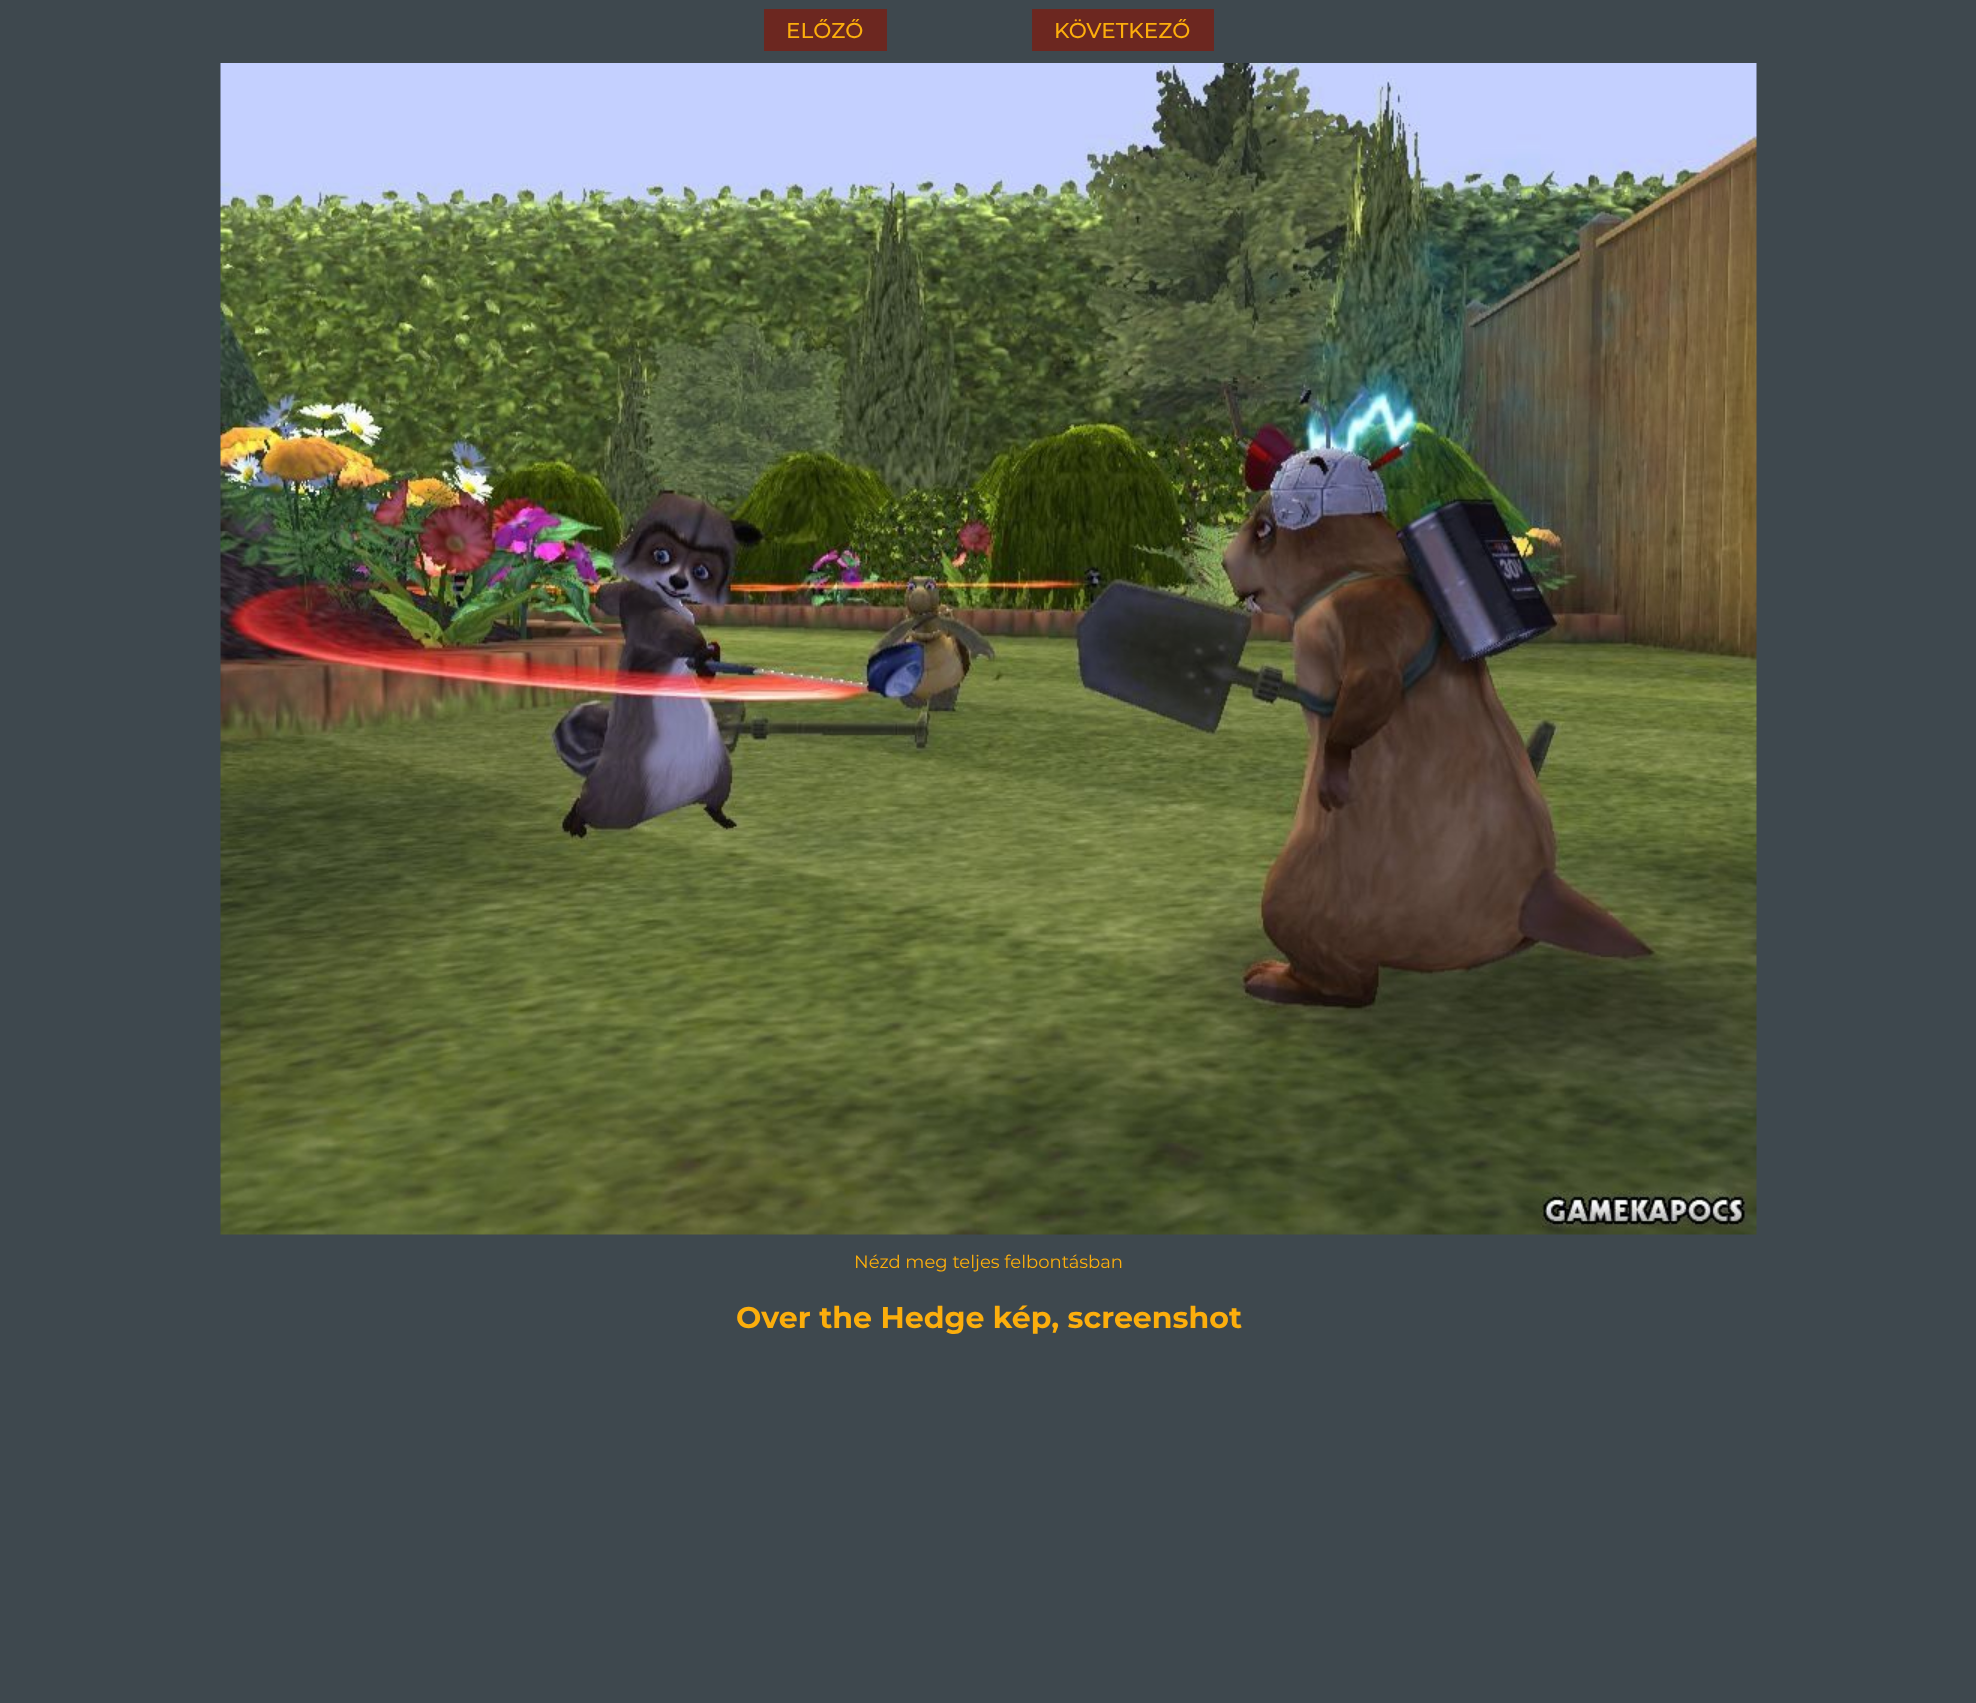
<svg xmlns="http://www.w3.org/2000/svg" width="1976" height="1703">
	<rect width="100%" height="100%" fill="#3E484E" />
	<rect x="764" y="9" width="123" height="42" fill="#6C2720" />
	<text x="786" y="38" font-family="Montserrat" font-size="21.5" font-weight="500" fill="#FCAE0C">ELŐZŐ</text>
	<rect x="1032" y="9" width="182" height="42" fill="#6C2720" />
	<text x="1054" y="38" font-family="Montserrat" font-size="21.5" font-weight="500" fill="#FCAE0C">KÖVETKEZŐ</text>
	<image x="220" y="63" width="1537" height="1172" href="assets/img1.png" />
	<text x="854" y="1268" font-family="Montserrat" font-size="18" fill="#FCAE0C">Nézd meg teljes felbontásban</text>
	<text x="736" y="1328" font-family="Montserrat" font-size="30" font-weight="700" fill="#FCAE0C">Over the Hedge kép, screenshot</text>
</svg>
